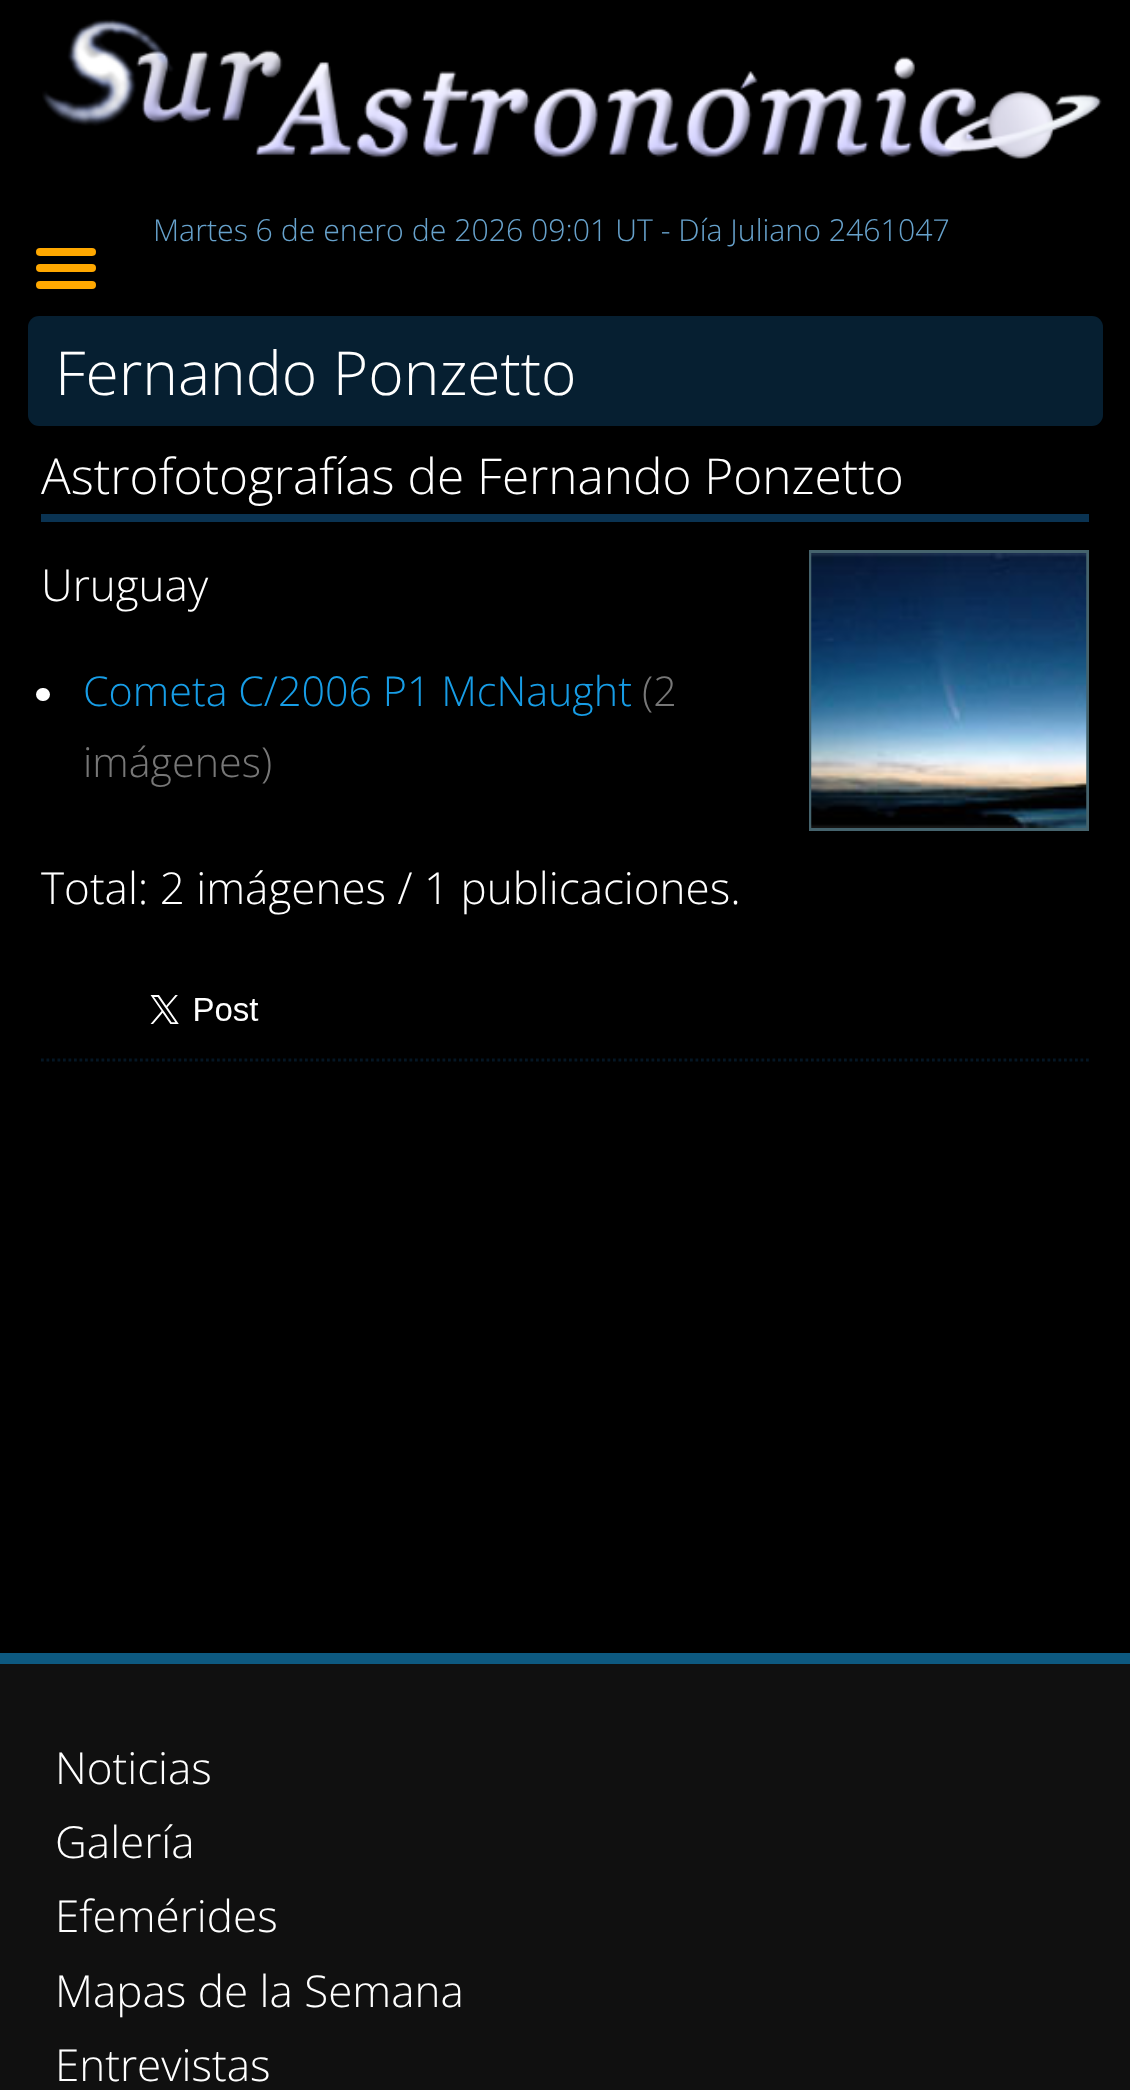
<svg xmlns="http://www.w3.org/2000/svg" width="1130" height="2090">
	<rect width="100%" height="100%" fill="#000000" />
	<image x="42" y="19" width="1060" height="140" href="assets/img1.png" />
	<text x="153" y="241" font-family="Open Sans" font-size="30.25" font-weight="300" fill="#67A2CC">Martes 6 de enero de 2026 09:01 UT - Día Juliano 2461047</text>
	<rect x="36" y="248" width="60" height="8" rx="4" fill="#FFA800" />
	<rect x="36" y="264" width="60" height="8" rx="4" fill="#FFA800" />
	<rect x="36" y="281" width="60" height="8" rx="4" fill="#FFA800" />
	<rect x="28" y="316" width="1075" height="110" rx="11" fill="#061F31" />
	<text x="55" y="395" font-family="Open Sans" font-size="60.5" font-weight="300" fill="#FFFFFF">Fernando Ponzetto</text>
	<rect x="41" y="514" width="1048" height="8" fill="#0A3352" />
	<text x="41" y="494" font-family="Open Sans" font-size="49.5" font-weight="300" fill="#FFFFFF">Astrofotografías de Fernando Ponzetto</text>
	<text x="41" y="601" font-family="Open Sans" font-size="44" font-weight="300" fill="#FFFFFF">Uruguay</text>
	<rect x="810.5" y="551.5" width="277" height="278" fill="none" stroke="#45636D" stroke-width="3" />
	<image x="811" y="553" width="276" height="275" href="assets/img2.png" />
	<rect x="36" y="688" width="14" height="13" rx="6.5" fill="#FFFFFF" />
	<text x="83" y="706" font-family="Open Sans" font-size="41.25" font-weight="300" fill="#179DE6">Cometa C/2006 P1 McNaught</text>
	<g font-family="Open Sans" font-size="41.25" font-weight="300" fill="#777777">
		<text x="642" y="706">(2</text>
		<text x="83" y="777">imágenes)</text>
	</g>
	<text x="41" y="904" font-family="Open Sans" font-size="44" font-weight="300" fill="#FFFFFF">Total: 2 imágenes / 1 publicaciones.</text>
	<path d="M41 1060H1089" fill="none" stroke="#041624" stroke-width="2.8" stroke-dasharray="2.75 2.75" />
	<image x="150" y="995" width="109" height="29" href="assets/img3.png" />
	<rect x="0" y="1664" width="1130" height="426" fill="#101010" />
	<rect x="0" y="1653" width="1130" height="11" fill="#0D5980" />
	<g font-family="Open Sans" font-size="44" font-weight="300" fill="#FFFFFF">
		<text x="55" y="1784">Noticias</text>
		<text x="55" y="1858">Galería</text>
		<text x="55" y="1932">Efemérides</text>
		<text x="55" y="2007">Mapas de la Semana</text>
		<text x="55" y="2081">Entrevistas</text>
	</g>
</svg>
